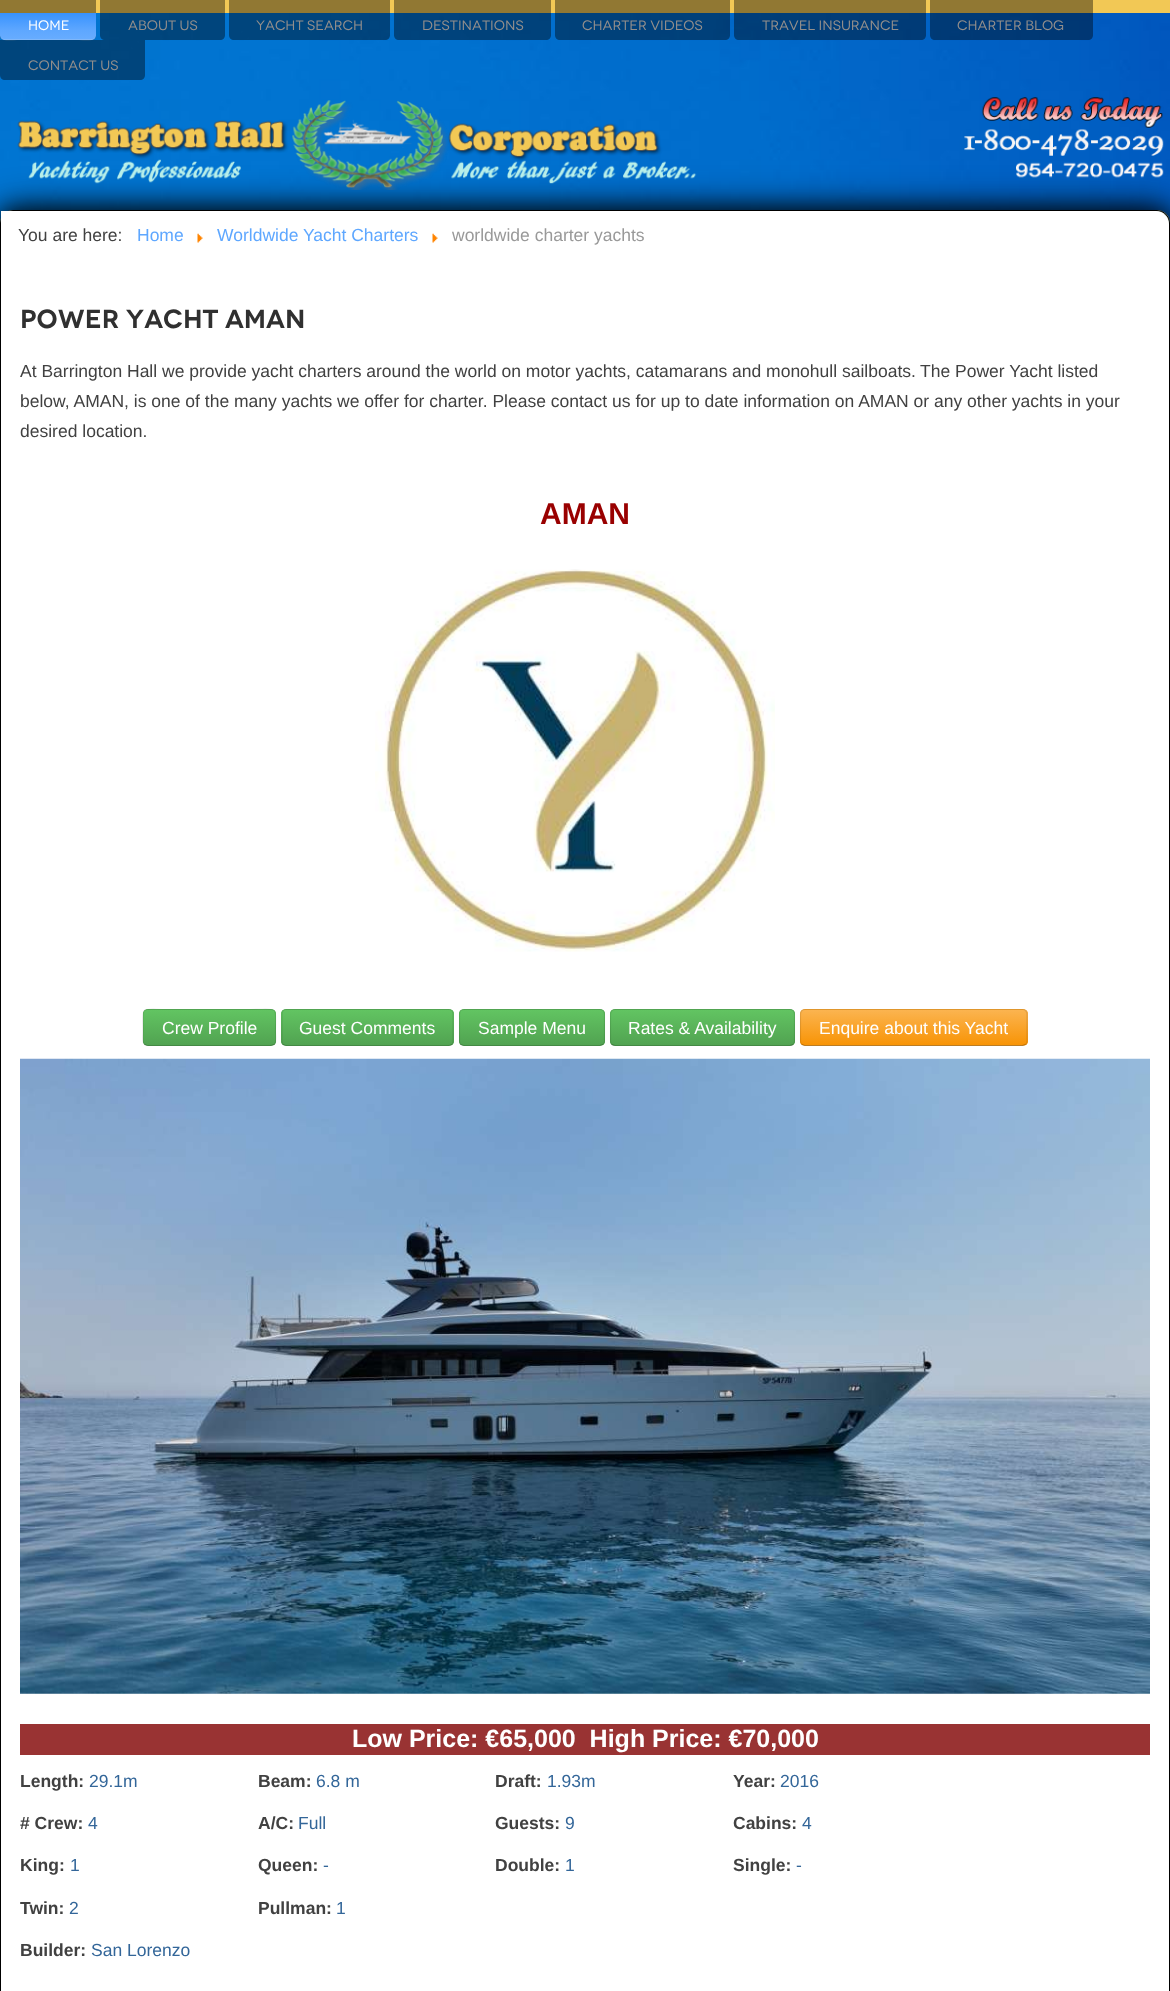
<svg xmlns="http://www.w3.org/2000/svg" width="1170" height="1991">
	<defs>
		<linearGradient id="g1" gradientUnits="userSpaceOnUse" x1="48" y1="12" x2="48" y2="40"><stop offset="0" stop-color="#3591FF" /><stop offset="0.65" stop-color="#5EA7FF" /><stop offset="1" stop-color="#68ADFF" /></linearGradient>
		<clipPath id="clip1"><rect x="143" y="1009" width="133" height="37" rx="5" /></clipPath>
		<linearGradient id="g2" gradientUnits="userSpaceOnUse" x1="209" y1="1010" x2="209" y2="1045"><stop offset="0" stop-color="#62C462" /><stop offset="1" stop-color="#51A351" /></linearGradient>
		<clipPath id="clip2"><rect x="281" y="1009" width="173" height="37" rx="5" /></clipPath>
		<linearGradient id="g3" gradientUnits="userSpaceOnUse" x1="368" y1="1010" x2="368" y2="1045"><stop offset="0" stop-color="#62C462" /><stop offset="1" stop-color="#51A351" /></linearGradient>
		<clipPath id="clip3"><rect x="459" y="1009" width="146" height="37" rx="5" /></clipPath>
		<linearGradient id="g4" gradientUnits="userSpaceOnUse" x1="532" y1="1010" x2="532" y2="1045"><stop offset="0" stop-color="#62C462" /><stop offset="1" stop-color="#51A351" /></linearGradient>
		<clipPath id="clip4"><rect x="610" y="1009" width="185" height="37" rx="5" /></clipPath>
		<linearGradient id="g5" gradientUnits="userSpaceOnUse" x1="703" y1="1010" x2="703" y2="1045"><stop offset="0" stop-color="#62C462" /><stop offset="1" stop-color="#51A351" /></linearGradient>
		<clipPath id="clip5"><rect x="800" y="1009" width="228" height="37" rx="5" /></clipPath>
		<linearGradient id="g6" gradientUnits="userSpaceOnUse" x1="914" y1="1010" x2="914" y2="1045"><stop offset="0" stop-color="#FBB450" /><stop offset="1" stop-color="#F89406" /></linearGradient>
	</defs>
	<rect width="100%" height="100%" fill="#FFFFFF" />
	<image x="0" y="13" width="1170" height="210" href="assets/img1.png" />
	<rect x="0" y="0" width="1170" height="13" fill="#F2C855" />
	<path d="M0 0H96V35C96 38 94 40 91 40H5C2 40 0 38 0 35Z" fill="#000000" fill-opacity="0.4" />
	<path d="M0 13H96V35C96 38 94 40 91 40H5C2 40 0 38 0 35Z" fill="url(#g1)" />
	<path d="M0 34C0 44 14 40 19 40H77C82 40 96 44 96 34C96 37 94 39 91 39H5C2 39 0 37 0 34Z" fill="#E1E1E1" fill-opacity="0.2" />
	<text x="28" y="30" font-family="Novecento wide" font-size="13.75" fill="#FFFFFF">HOME</text>
	<path d="M100 0H225V35C225 38 223 40 220 40H105C102 40 100 38 100 35Z" fill="#000000" fill-opacity="0.4" />
	<text x="128" y="30" font-family="Novecento wide" font-size="13.75" fill="#938F8C">ABOUT US</text>
	<path d="M229 0H390V35C390 38 388 40 385 40H234C231 40 229 38 229 35Z" fill="#000000" fill-opacity="0.4" />
	<text x="256" y="30" font-family="Novecento wide" font-size="13.75" fill="#938F8C">YACHT SEARCH</text>
	<path d="M394 0H551V35C551 38 549 40 546 40H399C396 40 394 38 394 35Z" fill="#000000" fill-opacity="0.4" />
	<text x="422" y="30" font-family="Novecento wide" font-size="13.75" fill="#938F8C">DESTINATIONS</text>
	<path d="M555 0H730V35C730 38 728 40 725 40H560C557 40 555 38 555 35Z" fill="#000000" fill-opacity="0.4" />
	<text x="582" y="30" font-family="Novecento wide" font-size="13.75" fill="#938F8C">CHARTER VIDEOS</text>
	<path d="M734 0H926V35C926 38 924 40 921 40H739C736 40 734 38 734 35Z" fill="#000000" fill-opacity="0.4" />
	<text x="762" y="30" font-family="Novecento wide" font-size="13.75" fill="#938F8C">TRAVEL INSURANCE</text>
	<path d="M930 0H1093V35C1093 38 1091 40 1088 40H935C932 40 930 38 930 35Z" fill="#000000" fill-opacity="0.4" />
	<text x="957" y="30" font-family="Novecento wide" font-size="13.75" fill="#938F8C">CHARTER BLOG</text>
	<path d="M0 40H145V75C145 78 143 80 140 80H5C2 80 0 78 0 75Z" fill="#000000" fill-opacity="0.4" />
	<text x="28" y="70" font-family="Novecento wide" font-size="13.75" fill="#938F8C">CONTACT US</text>
	<rect x="0" y="210" width="1170" height="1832" rx="13" fill="#000000" fill-opacity="0.8" filter="blur(12.5px)" />
	<rect x="0" y="210" width="1170" height="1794" rx="13" fill="#ABBCA5" />
	<path d="M12 212H1158C1164 212 1169 218 1169 224C1169 217 1165 211 1158 211H12C5 211 1 217 1 224C1 218 6 212 12 212Z" fill="#B3C2AE" />
	<rect x="0.5" y="210.5" width="1169" height="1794" rx="12.5" fill="none" stroke="#000000" />
	<rect x="1" y="211" width="1168" height="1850" rx="13" fill="#000000" fill-opacity="0.8" filter="blur(19px)" />
	<image x="17" y="97" width="1147" height="93" href="assets/img2.png" />
	<path d="M1 211H1156C1163 211 1169 217 1169 224V1991C1169 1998 1163 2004 1156 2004H1Z" fill="#FFFFFF" />
	<text x="18" y="241" font-family="Liberation Sans" font-size="17.5" fill="#414141">You are here:</text>
	<text x="137" y="241" font-family="Liberation Sans" font-size="17.5" fill="#5EA7FF">Home</text>
	<image x="197" y="233" width="6" height="10" href="assets/img3.png" />
	<text x="217" y="241" font-family="Liberation Sans" font-size="17.5" fill="#5EA7FF">Worldwide Yacht Charters</text>
	<image x="432" y="233" width="6" height="10" href="assets/img3.png" />
	<text x="452" y="241" font-family="Liberation Sans" font-size="17.5" fill="#999999">worldwide charter yachts</text>
	<text x="20" y="328" font-family="Novecento wide" font-size="26.25" font-weight="600" fill="#303030">Power Yacht AMAN</text>
	<g font-family="Liberation Sans" font-size="17.5" fill="#414141">
		<text x="20" y="377">At Barrington Hall we provide yacht charters around the world on motor yachts, catamarans and monohull sailboats.</text>
		<text x="920" y="377">The Power Yacht listed</text>
		<text x="20" y="407">below, AMAN, is one of the many yachts we offer for charter. Please contact us for up to date information on AMAN or any other yachts in your</text>
		<text x="20" y="437">desired location.</text>
	</g>
	<text x="540" y="524" font-family="Liberation Sans" font-size="30" font-weight="700" fill="#990000">AMAN</text>
	<image x="375" y="569" width="400" height="383" href="assets/img4.png" />
	<rect x="143" y="1009" width="133" height="37" rx="5" fill="#5BB75B" />
	<g clip-path="url(#clip1)">
		<rect x="143" y="1010" width="133" height="35" fill="url(#g2)" />
	</g>
	<path d="M274.5 1044.5L271 1045.5H147L144.5 1044.5" fill="none" stroke="#000000" stroke-opacity="0.25" stroke-width="1.2" />
	<path d="M144.5 1044.5C141.5 1041.5 143 1035 143 1032C143 1004.5 138.5 1009.5 168 1009.5H250.5C280 1009.5 275.5 1004.5 275.5 1032C275.5 1035 277 1041.5 274.5 1044.5" fill="none" stroke="#000000" stroke-opacity="0.1" stroke-width="1.2" />
	<text x="162" y="1034" font-family="Liberation Sans" font-size="17.5" fill="#FFFFFF">Crew Profile</text>
	<rect x="281" y="1009" width="173" height="37" rx="5" fill="#5BB75B" />
	<g clip-path="url(#clip2)">
		<rect x="281" y="1010" width="173" height="35" fill="url(#g3)" />
	</g>
	<path d="M452 1044.5C451 1045 450 1045.5 449 1045.5H286C285 1045.5 284 1045 283 1044.5" fill="none" stroke="#000000" stroke-opacity="0.25" stroke-width="1.2" />
	<path d="M283 1044.5C282.5 1043.5 282 1042.5 282 1041V1014C282 1012.5 282.5 1011.5 283 1010.5C284 1010 285 1009.5 286 1009.5H449C450 1009.5 451 1010 452 1010.5C452.5 1011.5 453 1012.5 453 1014V1041C453 1042.5 452.5 1043.5 452 1044.5" fill="none" stroke="#000000" stroke-opacity="0.1" stroke-width="1.2" />
	<text x="299" y="1034" font-family="Liberation Sans" font-size="17.5" fill="#FFFFFF">Guest Comments</text>
	<rect x="459" y="1009" width="146" height="37" rx="5" fill="#5BB75B" />
	<g clip-path="url(#clip3)">
		<rect x="459" y="1010" width="146" height="35" fill="url(#g4)" />
	</g>
	<path d="M603 1044.5L600 1045.5H463.5L460.5 1044.5" fill="none" stroke="#000000" stroke-opacity="0.25" stroke-width="1.2" />
	<path d="M460.5 1044.5C460 1043.5 459.5 1042.5 459.5 1041V1014C459.5 1012.5 460 1011.5 460.5 1010.5C461.5 1010 462.5 1009.5 464 1009.5H600C601 1009.5 602.5 1010 603 1010.5C604 1011.5 604.5 1012.5 604.5 1014V1041C604.5 1042.5 604 1043.5 603 1044.5" fill="none" stroke="#000000" stroke-opacity="0.1" stroke-width="1.2" />
	<text x="478" y="1034" font-family="Liberation Sans" font-size="17.5" fill="#FFFFFF">Sample Menu</text>
	<rect x="610" y="1009" width="185" height="37" rx="5" fill="#5BB75B" />
	<g clip-path="url(#clip4)">
		<rect x="610" y="1010" width="185" height="35" fill="url(#g5)" />
	</g>
	<path d="M793 1044.5C792.5 1045 791 1045.5 790 1045.5H615C614 1045.5 612.5 1045 612 1044.5" fill="none" stroke="#000000" stroke-opacity="0.25" stroke-width="1.2" />
	<path d="M612 1044.5C611 1043.5 610.5 1042.5 610.5 1041V1014C610.5 1012.5 611 1011.5 612 1010.5C612.5 1010 614 1009.5 615 1009.5H790C791 1009.5 792.5 1010 793 1010.5C794 1011.5 794.5 1012.5 794.5 1014V1041C794.5 1042.5 794 1043.5 793 1044.5" fill="none" stroke="#000000" stroke-opacity="0.1" stroke-width="1.2" />
	<text x="628" y="1034" font-family="Liberation Sans" font-size="17.5" fill="#FFFFFF">Rates &amp; Availability</text>
	<rect x="800" y="1009" width="228" height="37" rx="5" fill="#FAA732" />
	<g clip-path="url(#clip5)">
		<rect x="800" y="1010" width="228" height="35" fill="url(#g6)" />
	</g>
	<path d="M1025.5 1044.5L1022.5 1045.5H804.5L802 1044.5" fill="none" stroke="#000000" stroke-opacity="0.25" stroke-width="1.2" />
	<path d="M802 1044.5C801 1043.5 800.5 1042.5 800.5 1041V1014C800.5 1012.5 801 1011.5 802 1010.5C802.5 1010 804 1009.5 805 1009.5H1022.5C1023.5 1009.5 1025 1010 1025.5 1010.5C1026.5 1011.5 1027 1012.5 1027 1014V1041C1027 1042.5 1026.5 1043.5 1025.5 1044.5" fill="none" stroke="#000000" stroke-opacity="0.1" stroke-width="1.2" />
	<text x="819" y="1034" font-family="Liberation Sans" font-size="17.5" fill="#FFFFFF">Enquire about this Yacht</text>
	<image x="20" y="1058" width="1130" height="636" href="assets/img5.png" />
	<rect x="20" y="1724" width="1130" height="31" fill="#993333" />
	<text x="352" y="1747" font-family="Liberation Sans" font-size="25" font-weight="700" fill="#FFFFFF" xml:space="preserve">Low Price: €65,000  High Price: €70,000</text>
	<text x="20" y="1787" font-family="Liberation Sans" font-size="17.5" font-weight="700" fill="#414141">Length:</text>
	<text x="89" y="1787" font-family="Liberation Sans" font-size="17.5" fill="#336699">29.1m</text>
	<text x="258" y="1787" font-family="Liberation Sans" font-size="17.5" font-weight="700" fill="#414141">Beam:</text>
	<text x="316" y="1787" font-family="Liberation Sans" font-size="17.5" fill="#336699">6.8 m</text>
	<text x="495" y="1787" font-family="Liberation Sans" font-size="17.5" font-weight="700" fill="#414141">Draft:</text>
	<text x="547" y="1787" font-family="Liberation Sans" font-size="17.5" fill="#336699">1.93m</text>
	<text x="733" y="1787" font-family="Liberation Sans" font-size="17.5" font-weight="700" fill="#414141">Year:</text>
	<text x="780" y="1787" font-family="Liberation Sans" font-size="17.5" fill="#336699">2016</text>
	<text x="20" y="1829" font-family="Liberation Sans" font-size="17.5" font-weight="700" fill="#414141"># Crew:</text>
	<text x="88" y="1829" font-family="Liberation Sans" font-size="17.5" fill="#336699">4</text>
	<text x="258" y="1829" font-family="Liberation Sans" font-size="17.5" font-weight="700" fill="#414141">A/C:</text>
	<text x="298" y="1829" font-family="Liberation Sans" font-size="17.5" fill="#336699">Full</text>
	<text x="495" y="1829" font-family="Liberation Sans" font-size="17.5" font-weight="700" fill="#414141">Guests:</text>
	<text x="565" y="1829" font-family="Liberation Sans" font-size="17.5" fill="#336699">9</text>
	<text x="733" y="1829" font-family="Liberation Sans" font-size="17.5" font-weight="700" fill="#414141">Cabins:</text>
	<text x="802" y="1829" font-family="Liberation Sans" font-size="17.5" fill="#336699">4</text>
	<text x="20" y="1871" font-family="Liberation Sans" font-size="17.5" font-weight="700" fill="#414141">King:</text>
	<text x="70" y="1871" font-family="Liberation Sans" font-size="17.5" fill="#336699">1</text>
	<text x="258" y="1871" font-family="Liberation Sans" font-size="17.5" font-weight="700" fill="#414141">Queen:</text>
	<text x="323" y="1871" font-family="Liberation Sans" font-size="17.5" fill="#336699">-</text>
	<text x="495" y="1871" font-family="Liberation Sans" font-size="17.5" font-weight="700" fill="#414141">Double:</text>
	<text x="565" y="1871" font-family="Liberation Sans" font-size="17.5" fill="#336699">1</text>
	<text x="733" y="1871" font-family="Liberation Sans" font-size="17.5" font-weight="700" fill="#414141">Single:</text>
	<text x="796" y="1871" font-family="Liberation Sans" font-size="17.5" fill="#336699">-</text>
	<text x="20" y="1914" font-family="Liberation Sans" font-size="17.5" font-weight="700" fill="#414141">Twin:</text>
	<text x="69" y="1914" font-family="Liberation Sans" font-size="17.5" fill="#336699">2</text>
	<text x="258" y="1914" font-family="Liberation Sans" font-size="17.5" font-weight="700" fill="#414141">Pullman:</text>
	<text x="336" y="1914" font-family="Liberation Sans" font-size="17.5" fill="#336699">1</text>
	<text x="20" y="1956" font-family="Liberation Sans" font-size="17.5" font-weight="700" fill="#414141">Builder:</text>
	<text x="91" y="1956" font-family="Liberation Sans" font-size="17.5" fill="#336699">San Lorenzo</text>
</svg>
